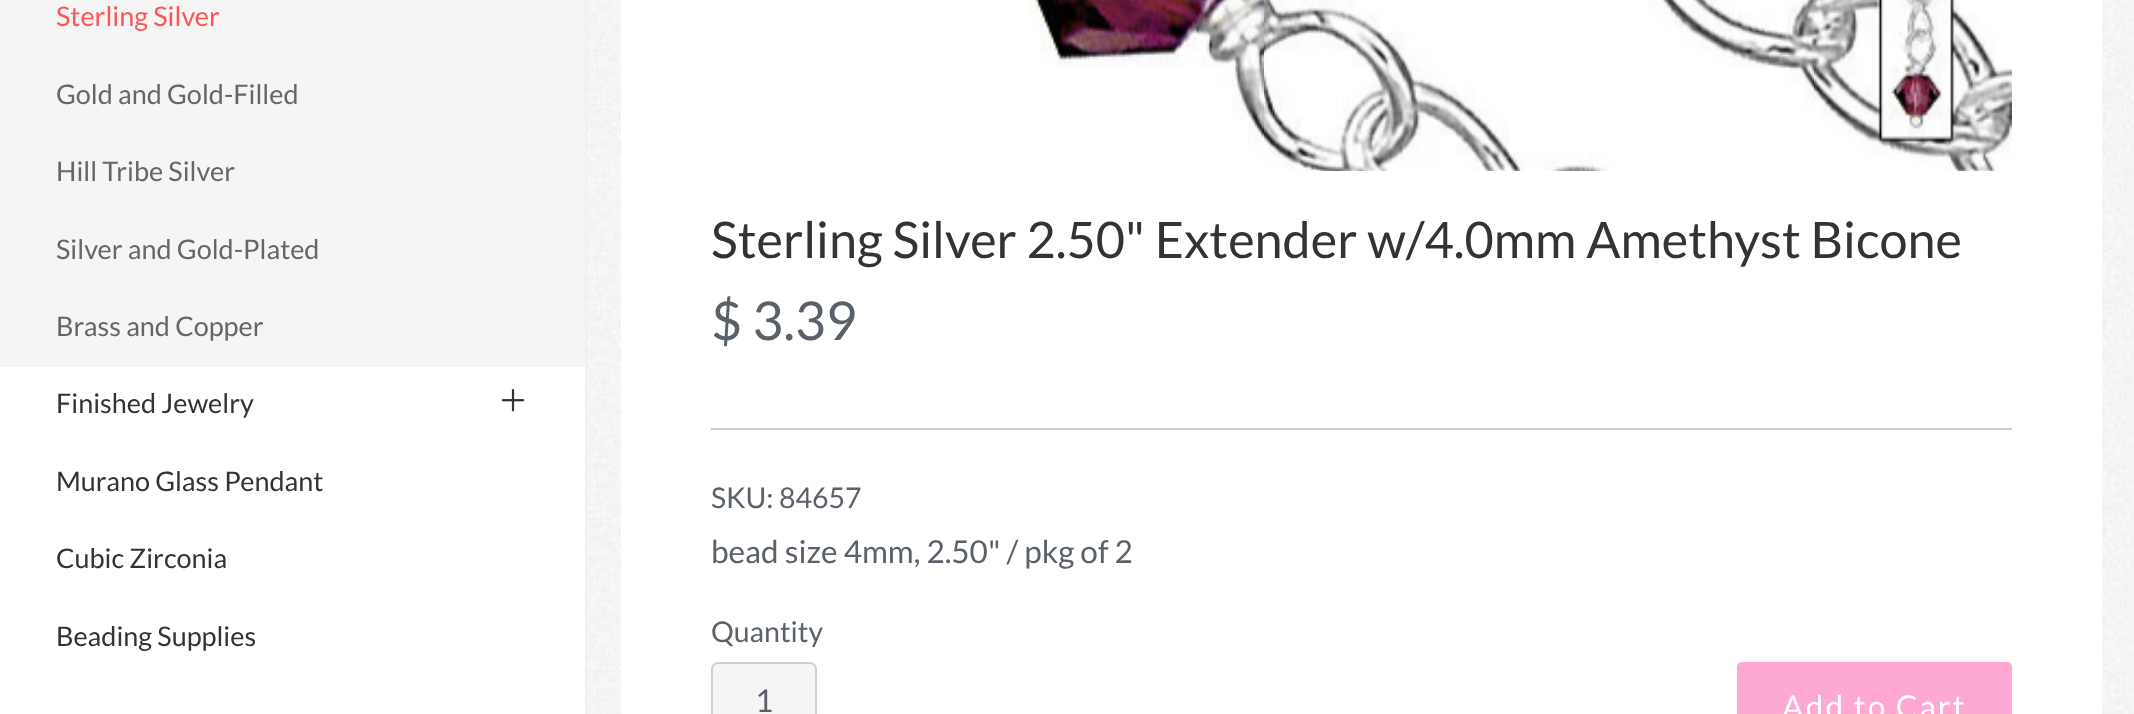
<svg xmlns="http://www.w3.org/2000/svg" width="2134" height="714">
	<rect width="100%" height="100%" fill="#F5F5F5" />
	<image x="587" y="0" width="1546" height="714" href="assets/img1.png" />
	<rect x="0" y="367" width="585" height="347" fill="#FFFFFF" />
	<rect x="585" y="0" width="2" height="714" fill="#F0F0F0" />
	<text x="56" y="26" font-family="Lato" font-size="27" fill="#FF5555">Sterling Silver</text>
	<g font-family="Lato" font-size="27" fill="#666666">
		<text x="56" y="104">Gold and Gold-Filled</text>
		<text x="56" y="181">Hill Tribe Silver</text>
		<text x="56" y="259">Silver and Gold-Plated</text>
		<text x="56" y="336">Brass and Copper</text>
	</g>
	<text x="56" y="413" font-family="Lato" font-size="27" fill="#333333">Finished Jewelry</text>
	<image x="501" y="389" width="24" height="23" href="assets/img2.png" />
	<g font-family="Lato" font-size="27" fill="#333333">
		<text x="56" y="491">Murano Glass Pendant</text>
		<text x="56" y="568">Cubic Zirconia</text>
		<text x="56" y="646">Beading Supplies</text>
	</g>
	<rect x="621" y="0" width="1481" height="714" fill="#FFFFFF" />
	<image x="1029" y="0" width="983" height="171" href="assets/img3.png" />
	<text x="711" y="258" font-family="Lato" font-size="50.4" fill="#333333">Sterling Silver 2.50" Extender w/4.0mm Amethyst Bicone</text>
	<text x="711" y="340" font-family="Lato" font-size="53.5" fill="#5B6169">$ 3.39</text>
	<rect x="711" y="428" width="1301" height="2" fill="#CCCCCC" />
	<text x="711" y="508" font-family="Lato" font-size="28.5" fill="#5B6169">SKU: 84657</text>
	<text x="711" y="563" font-family="Lato" font-size="31.5" fill="#5B6169">bead size 4mm, 2.50" / pkg of 2</text>
	<text x="711" y="642" font-family="Lato" font-size="28.5" fill="#5B6169">Quantity</text>
	<rect x="712" y="663" width="104" height="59" rx="6" fill="#F5F5F5" stroke="#CED0D2" stroke-width="2" />
	<text x="755" y="712" font-family="Lato" font-size="31.5" fill="#5B6169">1</text>
	<rect x="1737" y="662" width="275" height="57" rx="5" fill="#FEA8D4" />
	<text x="1782" y="718" font-family="Lato" font-size="31.5" letter-spacing="2.25" fill="#FFFFFF">Add to Cart</text>
</svg>
